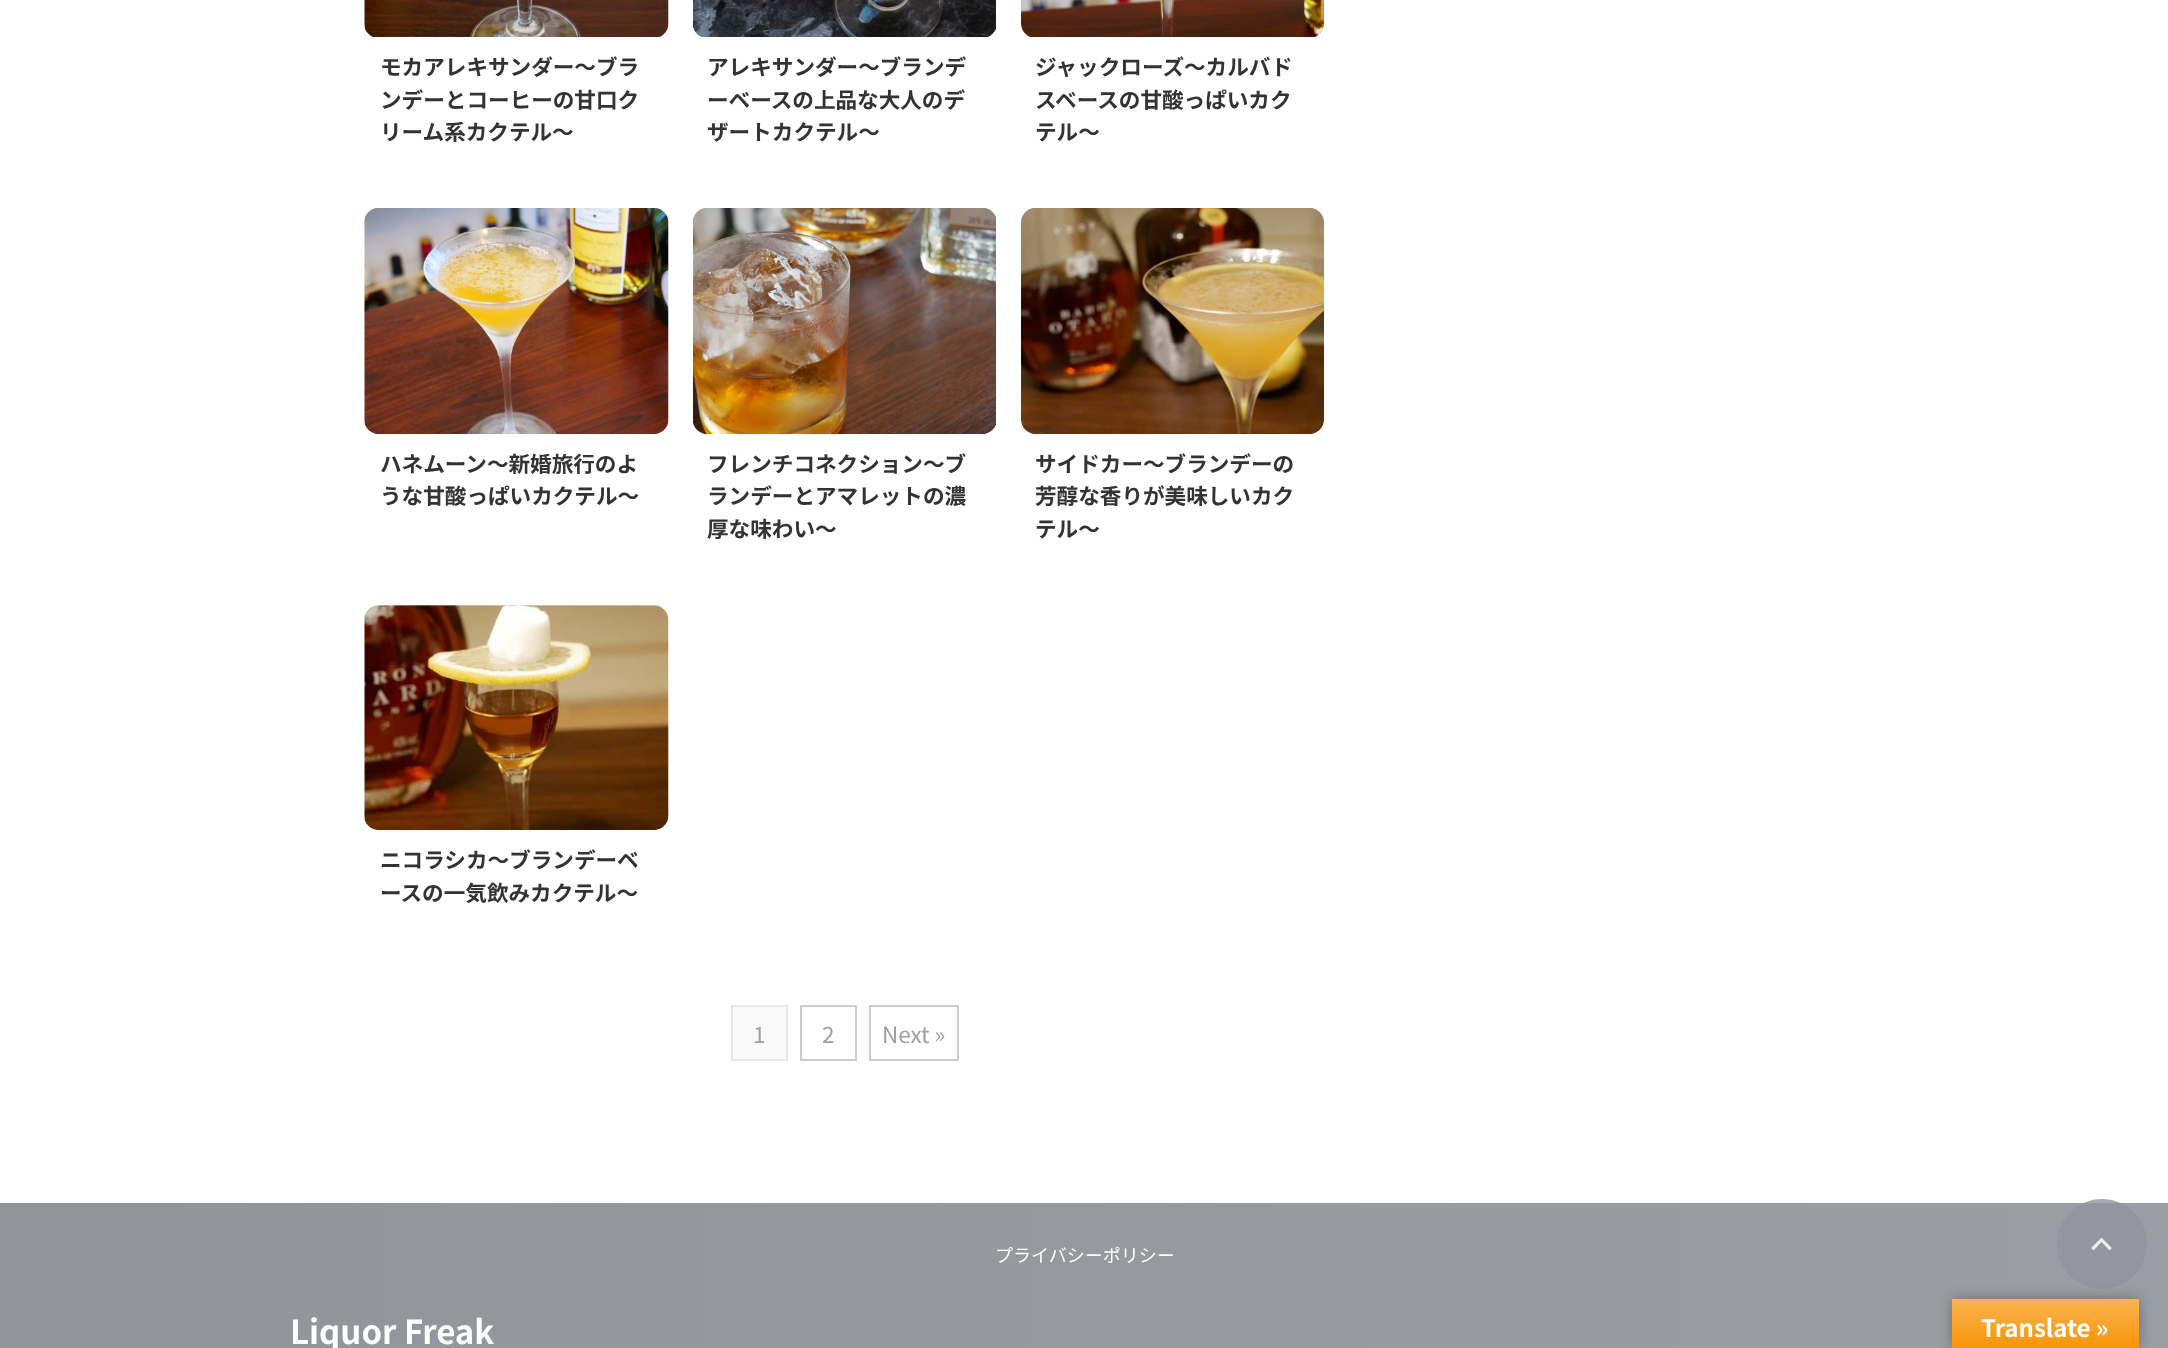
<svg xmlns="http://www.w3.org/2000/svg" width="2168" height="1348">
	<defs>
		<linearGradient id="g1" gradientUnits="userSpaceOnUse" x1="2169" y1="1314" x2="0" y2="1314"><stop offset="0" stop-color="#9C9EA5" /><stop offset="1" stop-color="#92949C" /></linearGradient>
		<linearGradient id="g2" gradientUnits="userSpaceOnUse" x1="2045" y1="1299" x2="2045" y2="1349"><stop offset="0" stop-color="#FBB450" /><stop offset="1" stop-color="#F89406" /></linearGradient>
	</defs>
	<rect width="100%" height="100%" fill="#FFFFFF" />
	<image x="364" y="0" width="305" height="37" href="assets/img1.png" />
	<g font-family="Noto Sans JP" font-size="21.6" font-weight="700" fill="#333333">
		<text x="380" y="75">モカアレキサンダー～ブラ</text>
		<text x="380" y="108">ンデーとコーヒーの甘口ク</text>
		<text x="380" y="140">リーム系カクテル～</text>
	</g>
	<image x="693" y="0" width="303" height="37" href="assets/img2.png" />
	<g font-family="Noto Sans JP" font-size="21.6" font-weight="700" fill="#333333">
		<text x="707" y="75">アレキサンダー～ブランデ</text>
		<text x="707" y="108">ーベースの上品な大人のデ</text>
		<text x="707" y="140">ザートカクテル～</text>
	</g>
	<image x="1021" y="0" width="303" height="37" href="assets/img3.png" />
	<g font-family="Noto Sans JP" font-size="21.6" font-weight="700" fill="#333333">
		<text x="1035" y="75">ジャックローズ～カルバド</text>
		<text x="1035" y="108">スベースの甘酸っぱいカク</text>
		<text x="1035" y="140">テル～</text>
	</g>
	<image x="364" y="208" width="305" height="226" href="assets/img4.png" />
	<g font-family="Noto Sans JP" font-size="21.6" font-weight="700" fill="#333333">
		<text x="380" y="472">ハネムーン～新婚旅行のよ</text>
		<text x="380" y="504">うな甘酸っぱいカクテル～</text>
	</g>
	<image x="693" y="208" width="303" height="226" href="assets/img5.png" />
	<g font-family="Noto Sans JP" font-size="21.6" font-weight="700" fill="#333333">
		<text x="707" y="472">フレンチコネクション～ブ</text>
		<text x="707" y="504">ランデーとアマレットの濃</text>
		<text x="707" y="537">厚な味わい～</text>
	</g>
	<image x="1021" y="208" width="303" height="226" href="assets/img6.png" />
	<g font-family="Noto Sans JP" font-size="21.6" font-weight="700" fill="#333333">
		<text x="1035" y="472">サイドカー～ブランデーの</text>
		<text x="1035" y="504">芳醇な香りが美味しいカク</text>
		<text x="1035" y="537">テル～</text>
	</g>
	<image x="364" y="605" width="305" height="225" href="assets/img7.png" />
	<g font-family="Noto Sans JP" font-size="21.6" font-weight="700" fill="#333333">
		<text x="380" y="868">ニコラシカ～ブランデーベ</text>
		<text x="380" y="901">ースの一気飲みカクテル～</text>
	</g>
	<rect x="732" y="1006" width="55" height="54" fill="#F9F9F9" stroke="#E6E6E6" stroke-width="2" />
	<text x="753" y="1043" font-family="Noto Sans JP" font-size="22.5" fill="#9E9E9E">1</text>
	<rect x="801" y="1006" width="55" height="54" fill="none" stroke="#CCCCCC" stroke-width="2" />
	<text x="822" y="1043" font-family="Noto Sans JP" font-size="22.5" fill="#9E9E9E">2</text>
	<rect x="870" y="1006" width="88" height="54" fill="none" stroke="#CCCCCC" stroke-width="2" />
	<text x="882" y="1043" font-family="Noto Sans JP" font-size="22.5" fill="#9E9E9E">Next »</text>
	<rect x="0" y="1203" width="2168" height="145" fill="url(#g1)" />
	<text x="995" y="1262" font-family="Noto Sans JP" font-size="18" fill="#FFFFFF">プライバシーポリシー</text>
	<text x="290" y="1344" font-family="Noto Sans JP" font-size="33" font-weight="700" fill="#FFFFFF">Liquor Freak</text>
	<circle cx="2102" cy="1244" r="45" fill="#92949C" fill-opacity="0.8" />
	<path d="M2101.5 1242L2093.5 1250.5L2091 1248L2101.5 1237.5L2112 1248L2109.5 1250.5Z" fill="#EBECED" />
	<rect x="1952" y="1299" width="187" height="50" fill="#000000" fill-opacity="0.3" filter="blur(7px)" />
	<rect x="1952" y="1299" width="187" height="49" fill="url(#g2)" />
	<text x="1981" y="1337" font-family="Noto Sans JP" font-size="24" font-weight="700" fill="#FFFFFF">Translate »</text>
</svg>
